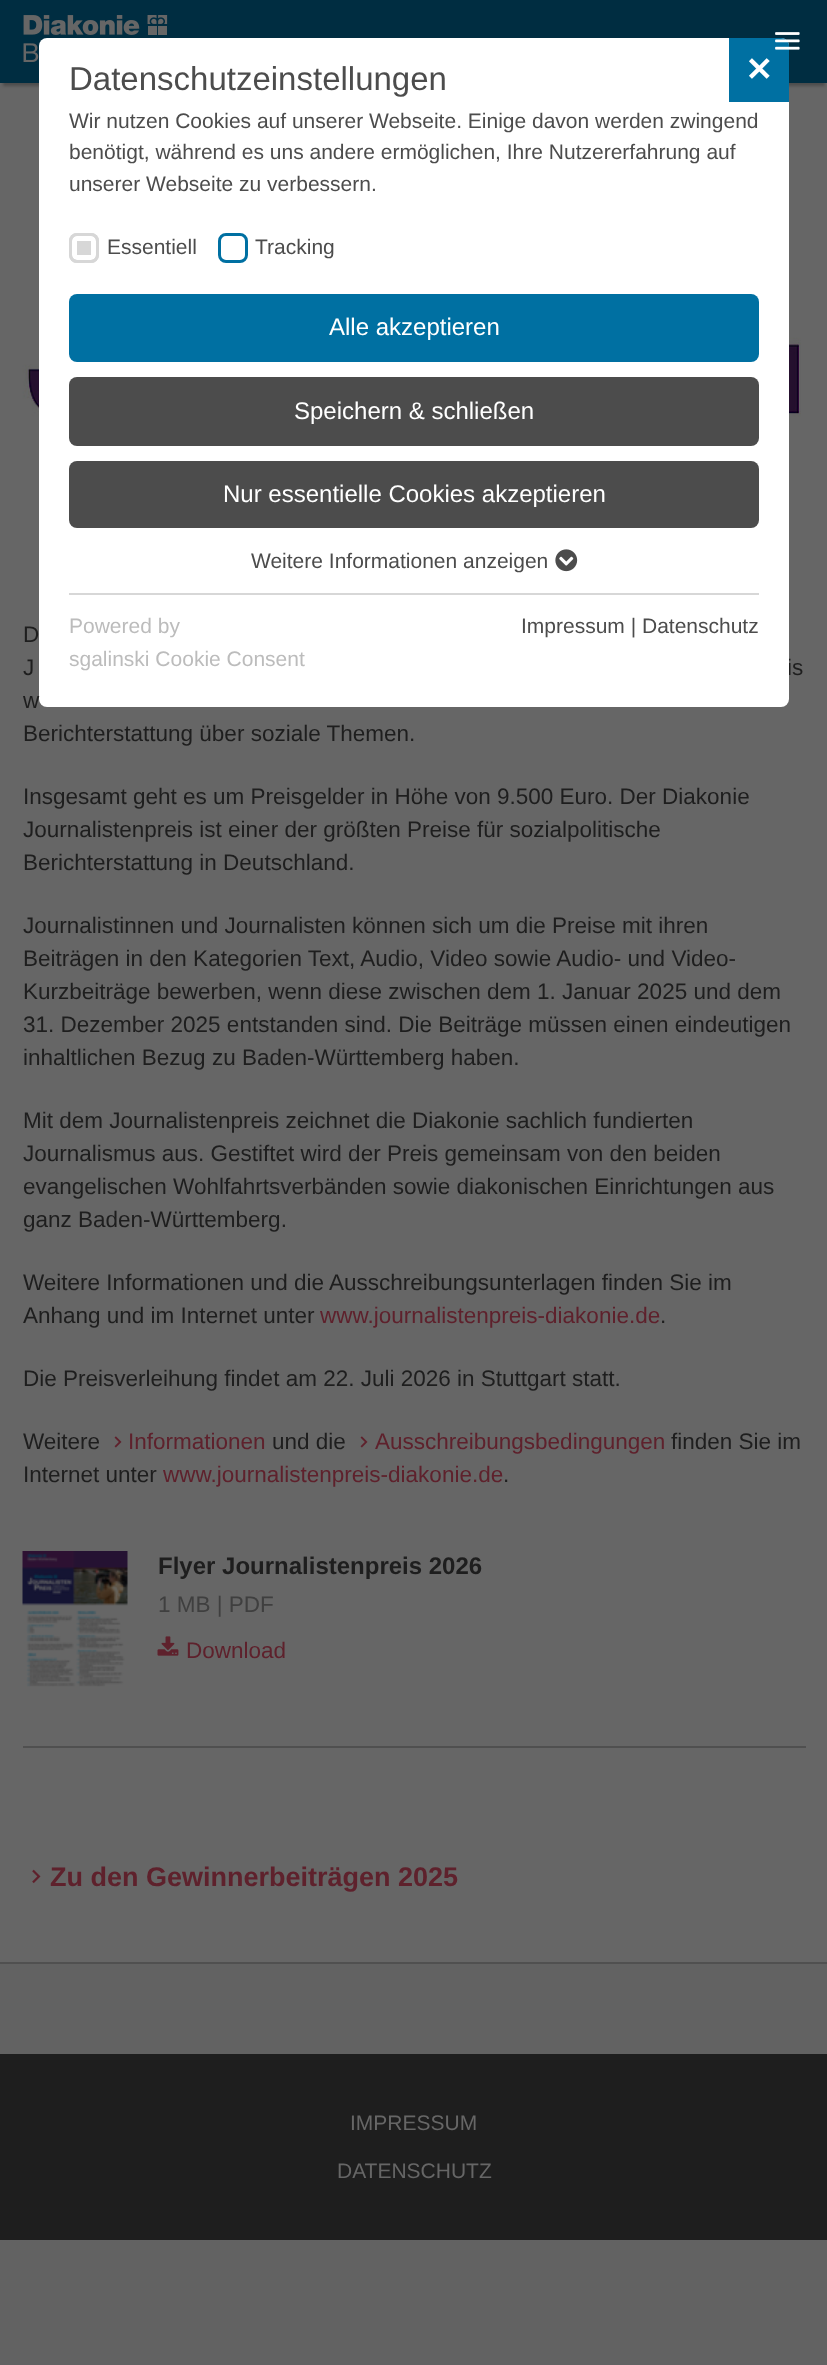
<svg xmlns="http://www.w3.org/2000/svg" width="827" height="2365">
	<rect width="100%" height="100%" fill="#626262" />
	<rect x="0" y="83" width="827" height="1879" fill="#666666" />
	<rect x="3" y="9" width="822" height="77" fill="#000000" fill-opacity="0.25" filter="blur(1.5px)" />
	<rect x="0" y="0" width="827" height="83" fill="#002D41" />
	<image x="23" y="15" width="145" height="47" href="assets/img3.png" />
	<image x="22" y="243" width="779" height="340" href="assets/img4.png" />
	<text x="787" y="675" font-family="Liberation Sans" font-size="22.5" fill="#1E1E1E">is</text>
	<rect x="39" y="38" width="750" height="669" rx="8" fill="#FFFFFF" />
	<path d="M729 38H781C785.5 38 789 41.5 789 46V102H729Z" fill="#0070A2" />
	<image x="775" y="32" width="25" height="18" href="assets/img1.png" />
	<text x="69" y="90" font-family="Liberation Sans" font-size="33" fill="#4C4C4C">Datenschutzeinstellungen</text>
	<text x="745" y="81" font-family="DejaVu Sans" font-size="33" font-weight="700" fill="#FFFFFF">✕</text>
	<g font-family="Liberation Sans" font-size="21" fill="#4C4C4C">
		<text x="69" y="128">Wir nutzen Cookies auf unserer Webseite. Einige davon werden zwingend</text>
		<text x="69" y="159">benötigt, während es uns andere ermöglichen, Ihre Nutzererfahrung auf</text>
		<text x="69" y="191">unserer Webseite zu verbessern.</text>
	</g>
	<rect x="69" y="233" width="30" height="30" rx="8" fill="#D7D7D7" />
	<rect x="74.5" y="238.5" width="19" height="19" rx="2.5" fill="none" stroke="#FFFFFF" stroke-width="5" />
	<rect x="70.5" y="234.5" width="27" height="27" rx="6.5" fill="none" stroke="#D7D7D7" stroke-width="3" />
	<text x="107" y="254" font-family="Liberation Sans" font-size="21" fill="#4C4C4C">Essentiell</text>
	<rect x="219.5" y="234.5" width="27" height="27" rx="6.5" fill="none" stroke="#0070A2" stroke-width="3" />
	<text x="255" y="254" font-family="Liberation Sans" font-size="21" fill="#4C4C4C">Tracking</text>
	<rect x="69" y="294" width="690" height="68" rx="8" fill="#0070A2" />
	<text x="329" y="335" font-family="Liberation Sans" font-size="24" fill="#FFFFFF">Alle akzeptieren</text>
	<rect x="69" y="377" width="690" height="69" rx="8" fill="#4C4C4C" />
	<text x="294" y="419" font-family="Liberation Sans" font-size="24" fill="#FFFFFF">Speichern &amp; schließen</text>
	<rect x="69" y="461" width="690" height="67" rx="8" fill="#4C4C4C" />
	<text x="223" y="502" font-family="Liberation Sans" font-size="24" fill="#FFFFFF">Nur essentielle Cookies akzeptieren</text>
	<text x="251" y="568" font-family="Liberation Sans" font-size="21" fill="#4C4C4C">Weitere Informationen anzeigen</text>
	<image x="555" y="549" width="23" height="23" href="assets/img2.png" />
	<rect x="69" y="593" width="690" height="2" fill="#D7D7D7" />
	<g font-family="Liberation Sans" font-size="21" fill="#BCBCBC">
		<text x="69" y="633">Powered by</text>
		<text x="69" y="666">sgalinski Cookie Consent</text>
	</g>
	<text x="521" y="633" font-family="Liberation Sans" font-size="21" fill="#4C4C4C">Impressum | Datenschutz</text>
	<rect x="0" y="1962" width="827" height="2" fill="#505050" />
	<g font-family="Liberation Sans" font-size="22.5" fill="#1E1E1E">
		<text x="23" y="642">D</text>
		<text x="23" y="675">J</text>
		<text x="23" y="708">w</text>
		<text x="23" y="741">Berichterstattung über soziale Themen.</text>
		<text x="23" y="804">Insgesamt geht es um Preisgelder in Höhe von 9.500 Euro. Der Diakonie</text>
		<text x="23" y="837">Journalistenpreis ist einer der größten Preise für sozialpolitische</text>
		<text x="23" y="870">Berichterstattung in Deutschland.</text>
		<text x="23" y="933">Journalistinnen und Journalisten können sich um die Preise mit ihren</text>
		<text x="23" y="966">Beiträgen in den Kategorien Text, Audio, Video sowie Audio- und Video-</text>
		<text x="23" y="999">Kurzbeiträge bewerben, wenn diese zwischen dem 1. Januar 2025 und dem</text>
		<text x="23" y="1032">31. Dezember 2025 entstanden sind. Die Beiträge müssen einen eindeutigen</text>
		<text x="23" y="1065">inhaltlichen Bezug zu Baden-Württemberg haben.</text>
		<text x="23" y="1128">Mit dem Journalistenpreis zeichnet die Diakonie sachlich fundierten</text>
		<text x="23" y="1161">Journalismus aus. Gestiftet wird der Preis gemeinsam von den beiden</text>
		<text x="23" y="1194">evangelischen Wohlfahrtsverbänden sowie diakonischen Einrichtungen aus</text>
		<text x="23" y="1227">ganz Baden-Württemberg.</text>
		<text x="23" y="1290">Weitere Informationen und die Ausschreibungsunterlagen finden Sie im</text>
		<text x="23" y="1323">Anhang und im Internet unter</text>
	</g>
	<text x="320" y="1323" font-family="Liberation Sans" font-size="22.5" fill="#5E212C">www.journalistenpreis-diakonie.de</text>
	<g font-family="Liberation Sans" font-size="22.5" fill="#1E1E1E">
		<text x="660" y="1323">.</text>
		<text x="23" y="1386">Die Preisverleihung findet am 22. Juli 2026 in Stuttgart statt.</text>
		<text x="23" y="1449">Weitere</text>
	</g>
	<image x="114" y="1436" width="8" height="12" href="assets/img5.png" />
	<text x="128" y="1449" font-family="Liberation Sans" font-size="22.5" fill="#5E212C">Informationen</text>
	<text x="272" y="1449" font-family="Liberation Sans" font-size="22.5" fill="#1E1E1E">und die</text>
	<image x="360" y="1436" width="8" height="12" href="assets/img5.png" />
	<text x="375" y="1449" font-family="Liberation Sans" font-size="22.5" fill="#5E212C">Ausschreibungsbedingungen</text>
	<g font-family="Liberation Sans" font-size="22.5" fill="#1E1E1E">
		<text x="671" y="1449">finden Sie im</text>
		<text x="23" y="1482">Internet unter</text>
	</g>
	<text x="163" y="1482" font-family="Liberation Sans" font-size="22.5" fill="#5E212C">www.journalistenpreis-diakonie.de</text>
	<text x="503" y="1482" font-family="Liberation Sans" font-size="22.5" fill="#1E1E1E">.</text>
	<image x="22" y="1551" width="106" height="136" href="assets/img6.png" />
	<text x="158" y="1574" font-family="Liberation Sans" font-size="24" font-weight="700" fill="#1E1E1E">Flyer Journalistenpreis 2026</text>
	<text x="158" y="1612" font-family="Liberation Sans" font-size="22.5" fill="#3F3F3F">1 MB | PDF</text>
	<image x="157" y="1636" width="22" height="20" href="assets/img7.png" />
	<text x="186" y="1658" font-family="Liberation Sans" font-size="22.5" fill="#5E212C">Download</text>
	<rect x="23" y="1746" width="783" height="2" fill="#505050" />
	<image x="32" y="1869" width="9" height="15" href="assets/img8.png" />
	<text x="50" y="1886" font-family="Liberation Sans" font-size="27" font-weight="700" fill="#5E212C">Zu den Gewinnerbeiträgen 2025</text>
	<rect x="0" y="2054" width="827" height="186" fill="#1E1E1E" />
	<g font-family="Liberation Sans" font-size="21" fill="#666666">
		<text x="350" y="2130">IMPRESSUM</text>
		<text x="337" y="2178">DATENSCHUTZ</text>
	</g>
</svg>
